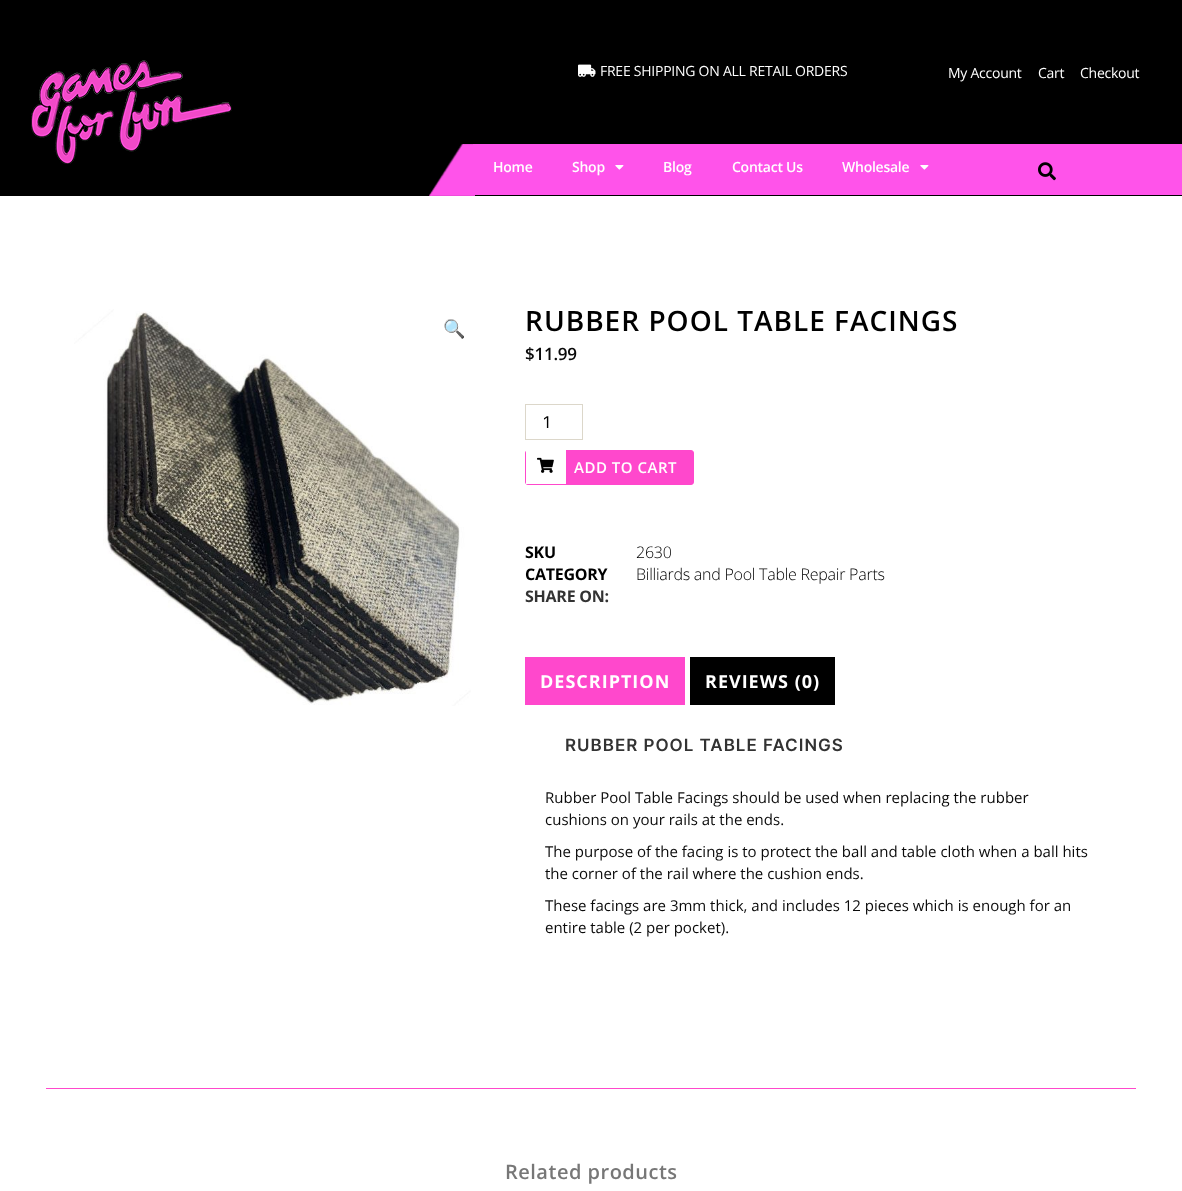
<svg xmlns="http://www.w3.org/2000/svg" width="1182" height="1191">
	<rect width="100%" height="100%" fill="#FFFFFF" />
	<rect x="0" y="0" width="1182" height="196" fill="#000000" />
	<image x="31" y="60" width="201" height="104" href="assets/img1.png" />
	<image x="578" y="64" width="18" height="13" href="assets/img2.png" />
	<g font-family="Open Sans" font-size="14" letter-spacing="-0.25" fill="#FFFFFF">
		<text x="600" y="76">FREE SHIPPING ON ALL RETAIL ORDERS</text>
		<text x="948" y="78">My Account</text>
		<text x="1038" y="78">Cart</text>
		<text x="1080" y="78">Checkout</text>
	</g>
	<image x="429" y="144" width="46" height="52" href="assets/img3.png" />
	<rect x="473" y="144" width="709" height="51" fill="#FF53EA" />
	<g font-family="Open Sans" font-size="14" font-weight="600" letter-spacing="-0.25" fill="#FFFFFF">
		<text x="493" y="172">Home</text>
		<text x="572" y="172">Shop</text>
	</g>
	<image x="615" y="165" width="9" height="5" href="assets/img4.png" />
	<g font-family="Open Sans" font-size="14" font-weight="600" letter-spacing="-0.25" fill="#FFFFFF">
		<text x="663" y="172">Blog</text>
		<text x="732" y="172">Contact Us</text>
		<text x="842" y="172">Wholesale</text>
	</g>
	<image x="920" y="165" width="9" height="5" href="assets/img4.png" />
	<image x="1038" y="162" width="18" height="19" href="assets/img5.png" />
	<image x="74" y="309" width="397" height="397" href="assets/img6.png" />
	<text x="443" y="335" font-family="Noto Color Emoji" font-size="18" letter-spacing="-0.25" fill="#CD2653">🔍</text>
	<text x="525" y="331" font-family="Open Sans" font-size="28" font-weight="600" letter-spacing="1" fill="#000000">RUBBER POOL TABLE FACINGS</text>
	<text x="525" y="360" font-family="Open Sans" font-size="17" font-weight="600" letter-spacing="-0.25" fill="#0A0A0A">$11.99</text>
	<rect x="525.5" y="404.5" width="57" height="35" fill="none" stroke="#DCD7CA" />
	<text x="543" y="428" font-family="Inter" font-size="16" fill="#000000">1</text>
	<rect x="525.5" y="450.5" width="168" height="34" rx="2.5" fill="#FF48CC" stroke="#FF48CC" />
	<rect x="526" y="450" width="40" height="34" fill="#FFFFFF" />
	<image x="537" y="457" width="17" height="16" href="assets/img7.png" />
	<text x="574" y="473" font-family="Open Sans" font-size="15" font-weight="600" letter-spacing="0.5" fill="#FFFFFF">ADD TO CART</text>
	<text x="525" y="558" font-family="Open Sans" font-size="16" font-weight="700" letter-spacing="-0.25" fill="#000000">SKU</text>
	<text x="636" y="558" font-family="Open Sans" font-size="16" font-weight="300" letter-spacing="-0.25" fill="#000000">2630</text>
	<text x="525" y="580" font-family="Open Sans" font-size="16" font-weight="700" letter-spacing="-0.25" fill="#000000">CATEGORY</text>
	<text x="636" y="580" font-family="Open Sans" font-size="16" font-weight="300" letter-spacing="-0.25" fill="#000000">Billiards and Pool Table Repair Parts</text>
	<text x="525" y="602" font-family="Open Sans" font-size="16" font-weight="700" letter-spacing="-0.25" fill="#333333">SHARE ON:</text>
	<rect x="525" y="657" width="160" height="48" fill="#FF48CC" />
	<text x="540" y="688" font-family="Open Sans" font-size="18" font-weight="700" letter-spacing="1" fill="#FFFFFF">DESCRIPTION</text>
	<rect x="690" y="657" width="145" height="48" fill="#000000" />
	<text x="705" y="688" font-family="Open Sans" font-size="18" font-weight="700" letter-spacing="1" fill="#FFFFFF">REVIEWS (0)</text>
	<text x="565" y="751" font-family="Inter" font-size="17" font-weight="600" letter-spacing="1" fill="#333333">RUBBER POOL TABLE FACINGS</text>
	<g font-family="Open Sans" font-size="15" fill="#0A0A0A">
		<text x="545" y="803">Rubber Pool Table Facings should be used when replacing the rubber</text>
		<text x="545" y="825">cushions on your rails at the ends.</text>
		<text x="545" y="857">The purpose of the facing is to protect the ball and table cloth when a ball hits</text>
		<text x="545" y="879">the corner of the rail where the cushion ends.</text>
		<text x="545" y="911">These facings are 3mm thick, and includes 12 pieces which is enough for an</text>
		<text x="545" y="933">entire table (2 per pocket).</text>
	</g>
	<rect x="46" y="1088" width="1090" height="1" fill="#FF48CC" />
	<text x="505" y="1179" font-family="Open Sans" font-size="20" font-weight="600" letter-spacing="0.5" fill="#777777">Related products</text>
</svg>
